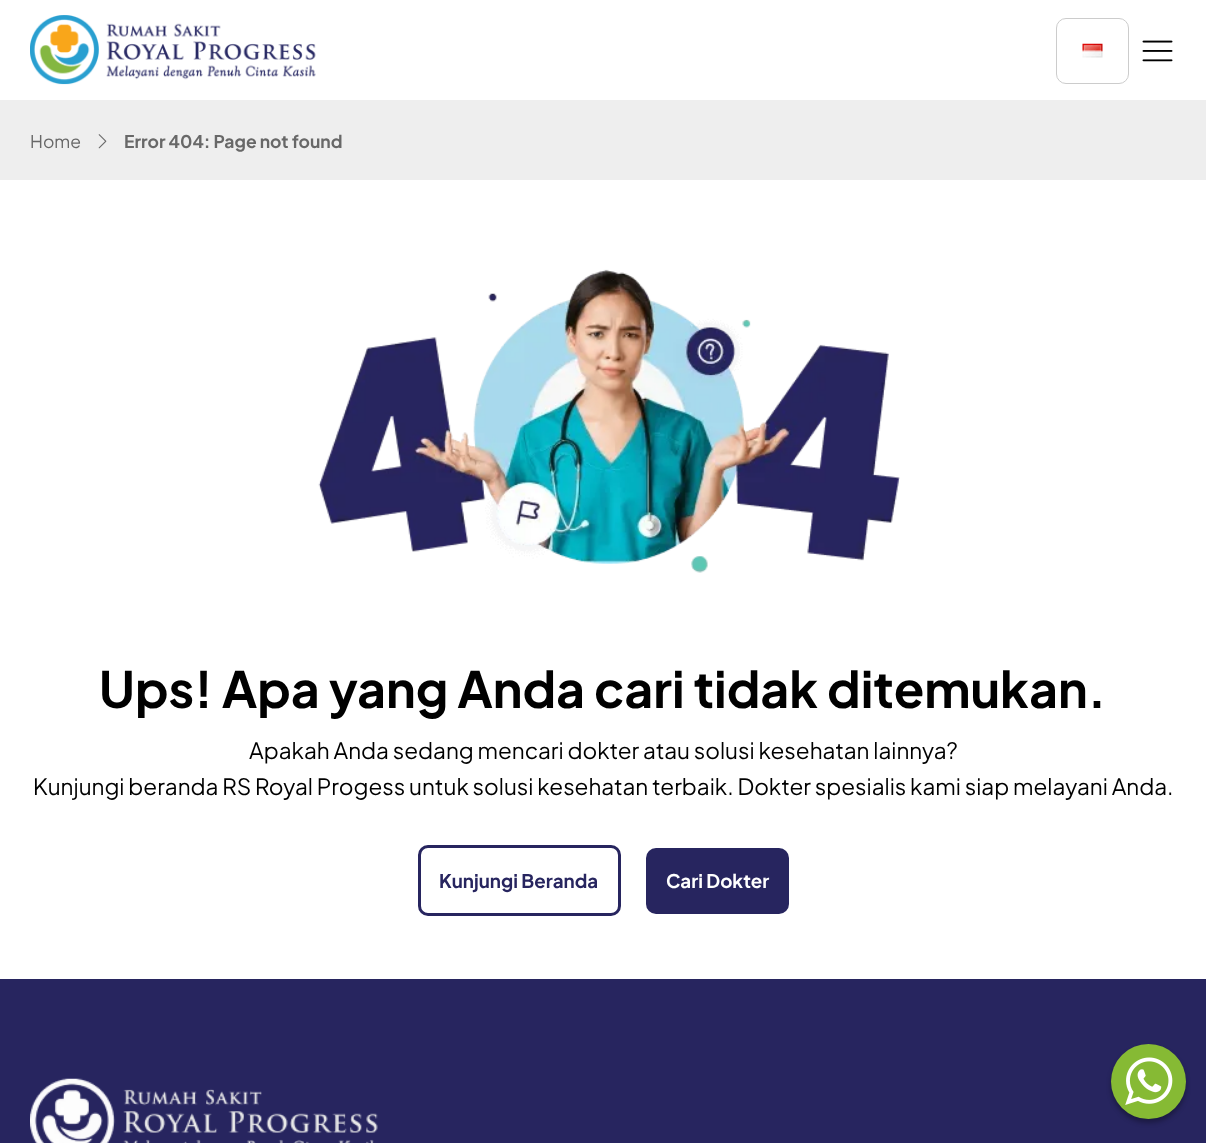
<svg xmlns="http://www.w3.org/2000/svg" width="1206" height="1143">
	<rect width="100%" height="100%" fill="#FFFFFF" />
	<image x="30" y="15" width="286" height="70" href="assets/img1.png" />
	<rect x="1056.5" y="18.5" width="72" height="65" rx="9.5" fill="none" stroke="#CCCCCC" />
	<image x="1082" y="43" width="21" height="15" href="assets/img2.png" />
	<image x="1142" y="40" width="31" height="22" href="assets/img3.png" />
	<rect x="0" y="100" width="1206" height="80" fill="#EEEEEE" />
	<text x="30" y="148" font-family="Plus Jakarta Sans" font-size="17.5" fill="#686868">Home</text>
	<image x="98" y="134" width="9" height="15" href="assets/img4.png" />
	<text x="124" y="148" font-family="Plus Jakarta Sans" font-size="17.5" font-weight="700" fill="#686868">Error 404: Page not found</text>
	<image x="318" y="269" width="582" height="304" href="assets/img5.png" />
	<text x="99" y="708" font-family="Plus Jakarta Sans" font-size="50" font-weight="700" fill="#000000">Ups! Apa yang Anda cari tidak ditemukan.</text>
	<g font-family="Plus Jakarta Sans" font-size="22.5" fill="#000000">
		<text x="249" y="759">Apakah Anda sedang mencari dokter atau solusi kesehatan lainnya?</text>
		<text x="33" y="795">Kunjungi beranda RS Royal Progess untuk solusi kesehatan terbaik. Dokter spesialis kami siap melayani Anda.</text>
	</g>
	<rect x="419.5" y="846.5" width="200" height="68" rx="8.5" fill="none" stroke="#27255F" stroke-width="3" />
	<text x="439" y="888" font-family="Plus Jakarta Sans" font-size="18.75" font-weight="700" fill="#27255F">Kunjungi Beranda</text>
	<rect x="646" y="848" width="143" height="66" rx="10" fill="#27255F" />
	<text x="666" y="888" font-family="Plus Jakarta Sans" font-size="18.75" font-weight="700" fill="#FFFFFF">Cari Dokter</text>
	<rect x="0" y="979" width="1206" height="164" fill="#27255F" />
	<image x="30" y="1078" width="348" height="65" href="assets/img6.png" />
	<rect x="1111" y="1048" width="75" height="75" rx="37.5" fill="#000000" fill-opacity="0.3" filter="blur(2.5px)" />
	<circle cx="1148.5" cy="1081.5" r="37.5" fill="#86BA34" />
	<image x="1125" y="1057" width="48" height="48" href="assets/img7.png" />
</svg>
